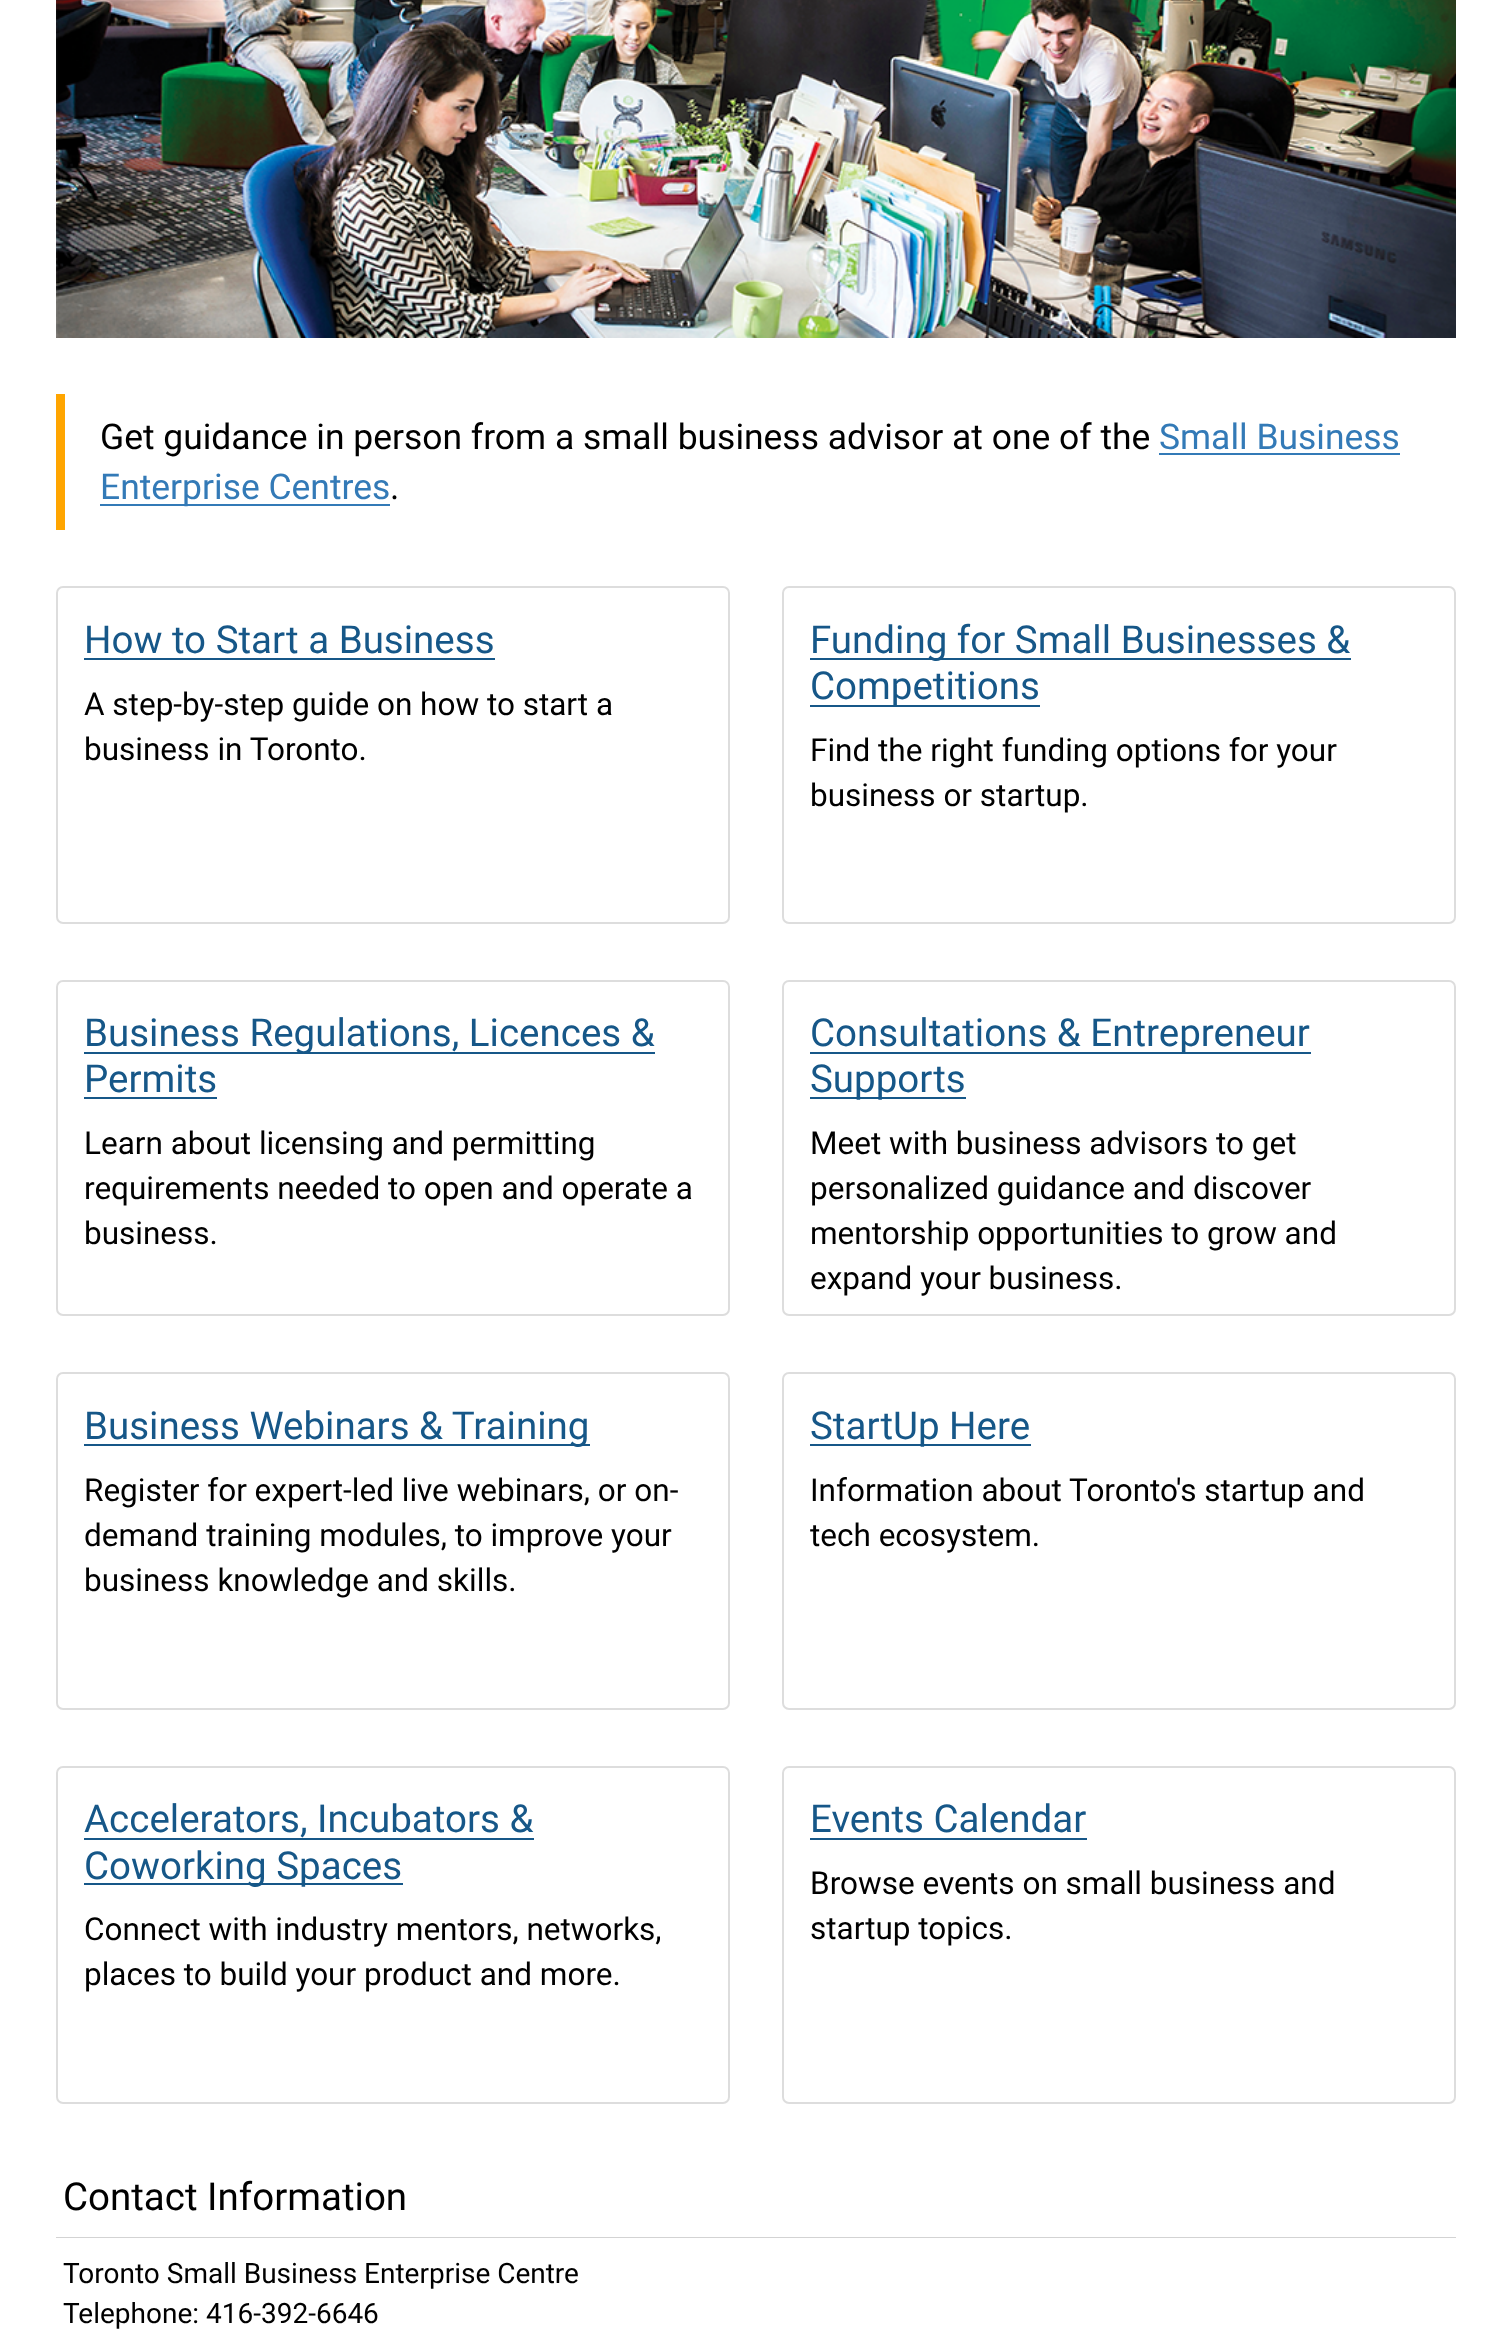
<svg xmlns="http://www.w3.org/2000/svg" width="1511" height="2336">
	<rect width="100%" height="100%" fill="#FFFFFF" />
	<image x="56" y="0" width="1400" height="338" href="assets/img1.png" />
	<rect x="56" y="394" width="9" height="136" fill="#FFA500" />
	<text x="100" y="449" font-family="Roboto" font-size="35.45" fill="#000000">Get guidance in person from a small business advisor at one of the</text>
	<text x="1159" y="449" font-family="Roboto" font-size="35.45" fill="#337AB7">Small Business</text>
	<rect x="1159" y="453" width="241" height="2" fill="#337AB7" />
	<rect x="100" y="504" width="290" height="2" fill="#337AB7" />
	<text x="100" y="499" font-family="Roboto" font-size="35.45" fill="#337AB7">Enterprise Centres</text>
	<text x="390" y="499" font-family="Roboto" font-size="35.45" fill="#000000">.</text>
	<rect x="57" y="587" width="672" height="336" rx="6" fill="none" stroke="#DDDDDD" stroke-width="2" />
	<text x="84" y="653" font-family="Roboto" font-size="38.5" fill="#165788">How to Start a Business</text>
	<rect x="84" y="658" width="411" height="2" fill="#165788" />
	<g font-family="Roboto" font-size="31.5" fill="#000000">
		<text x="84" y="715">A step-by-step guide on how to start a</text>
		<text x="84" y="760">business in Toronto.</text>
	</g>
	<rect x="783" y="587" width="672" height="336" rx="6" fill="none" stroke="#DDDDDD" stroke-width="2" />
	<rect x="810" y="658" width="541" height="2" fill="#165788" />
	<text x="810" y="653" font-family="Roboto" font-size="38.5" fill="#165788">Funding for Small Businesses &amp;</text>
	<rect x="810" y="705" width="230" height="2" fill="#165788" />
	<text x="810" y="699" font-family="Roboto" font-size="38.5" fill="#165788">Competitions</text>
	<g font-family="Roboto" font-size="31.5" fill="#000000">
		<text x="810" y="761">Find the right funding options for your</text>
		<text x="810" y="806">business or startup.</text>
	</g>
	<rect x="57" y="981" width="672" height="334" rx="6" fill="none" stroke="#DDDDDD" stroke-width="2" />
	<rect x="84" y="1052" width="571" height="2" fill="#165788" />
	<g font-family="Roboto" font-size="38.5" fill="#165788">
		<text x="84" y="1046">Business Regulations, Licences &amp;</text>
		<text x="84" y="1092">Permits</text>
	</g>
	<rect x="84" y="1097" width="133" height="2" fill="#165788" />
	<g font-family="Roboto" font-size="31.5" fill="#000000">
		<text x="84" y="1154">Learn about licensing and permitting</text>
		<text x="84" y="1199">requirements needed to open and operate a</text>
		<text x="84" y="1244">business.</text>
	</g>
	<rect x="783" y="981" width="672" height="334" rx="6" fill="none" stroke="#DDDDDD" stroke-width="2" />
	<rect x="810" y="1052" width="501" height="2" fill="#165788" />
	<text x="810" y="1046" font-family="Roboto" font-size="38.5" fill="#165788">Consultations &amp; Entrepreneur</text>
	<rect x="810" y="1097" width="156" height="2" fill="#165788" />
	<text x="810" y="1092" font-family="Roboto" font-size="38.5" fill="#165788">Supports</text>
	<g font-family="Roboto" font-size="31.5" fill="#000000">
		<text x="810" y="1154">Meet with business advisors to get</text>
		<text x="810" y="1199">personalized guidance and discover</text>
		<text x="810" y="1244">mentorship opportunities to grow and</text>
		<text x="810" y="1289">expand your business.</text>
	</g>
	<rect x="57" y="1373" width="672" height="336" rx="6" fill="none" stroke="#DDDDDD" stroke-width="2" />
	<rect x="84" y="1444" width="506" height="2" fill="#165788" />
	<text x="84" y="1439" font-family="Roboto" font-size="38.5" fill="#165788">Business Webinars &amp; Training</text>
	<g font-family="Roboto" font-size="31.5" fill="#000000">
		<text x="84" y="1501">Register for expert-led live webinars, or on-</text>
		<text x="84" y="1546">demand training modules, to improve your</text>
		<text x="84" y="1591">business knowledge and skills.</text>
	</g>
	<rect x="783" y="1373" width="672" height="336" rx="6" fill="none" stroke="#DDDDDD" stroke-width="2" />
	<rect x="810" y="1444" width="221" height="2" fill="#165788" />
	<text x="810" y="1439" font-family="Roboto" font-size="38.5" fill="#165788">StartUp Here</text>
	<g font-family="Roboto" font-size="31.5" fill="#000000">
		<text x="810" y="1501">Information about Toronto's startup and</text>
		<text x="810" y="1546">tech ecosystem.</text>
	</g>
	<rect x="57" y="1767" width="672" height="336" rx="6" fill="none" stroke="#DDDDDD" stroke-width="2" />
	<text x="84" y="1832" font-family="Roboto" font-size="38.5" fill="#165788">Accelerators, Incubators &amp;</text>
	<rect x="84" y="1838" width="450" height="2" fill="#165788" />
	<rect x="84" y="1883" width="319" height="2" fill="#165788" />
	<text x="84" y="1879" font-family="Roboto" font-size="38.5" fill="#165788">Coworking Spaces</text>
	<g font-family="Roboto" font-size="31.5" fill="#000000">
		<text x="84" y="1940">Connect with industry mentors, networks,</text>
		<text x="84" y="1985">places to build your product and more.</text>
	</g>
	<rect x="783" y="1767" width="672" height="336" rx="6" fill="none" stroke="#DDDDDD" stroke-width="2" />
	<text x="810" y="1832" font-family="Roboto" font-size="38.5" fill="#165788">Events Calendar</text>
	<rect x="810" y="1838" width="277" height="2" fill="#165788" />
	<g font-family="Roboto" font-size="31.5" fill="#000000">
		<text x="810" y="1894">Browse events on small business and</text>
		<text x="810" y="1939">startup topics.</text>
	</g>
	<rect x="56" y="2237" width="1400" height="1" fill="#D3D3D3" />
	<text x="63" y="2210" font-family="Roboto" font-size="38.5" fill="#000000">Contact Information</text>
	<g font-family="Roboto" font-size="28" fill="#000000">
		<text x="63" y="2283">Toronto Small Business Enterprise Centre</text>
		<text x="63" y="2323">Telephone: 416-392-6646</text>
	</g>
</svg>
